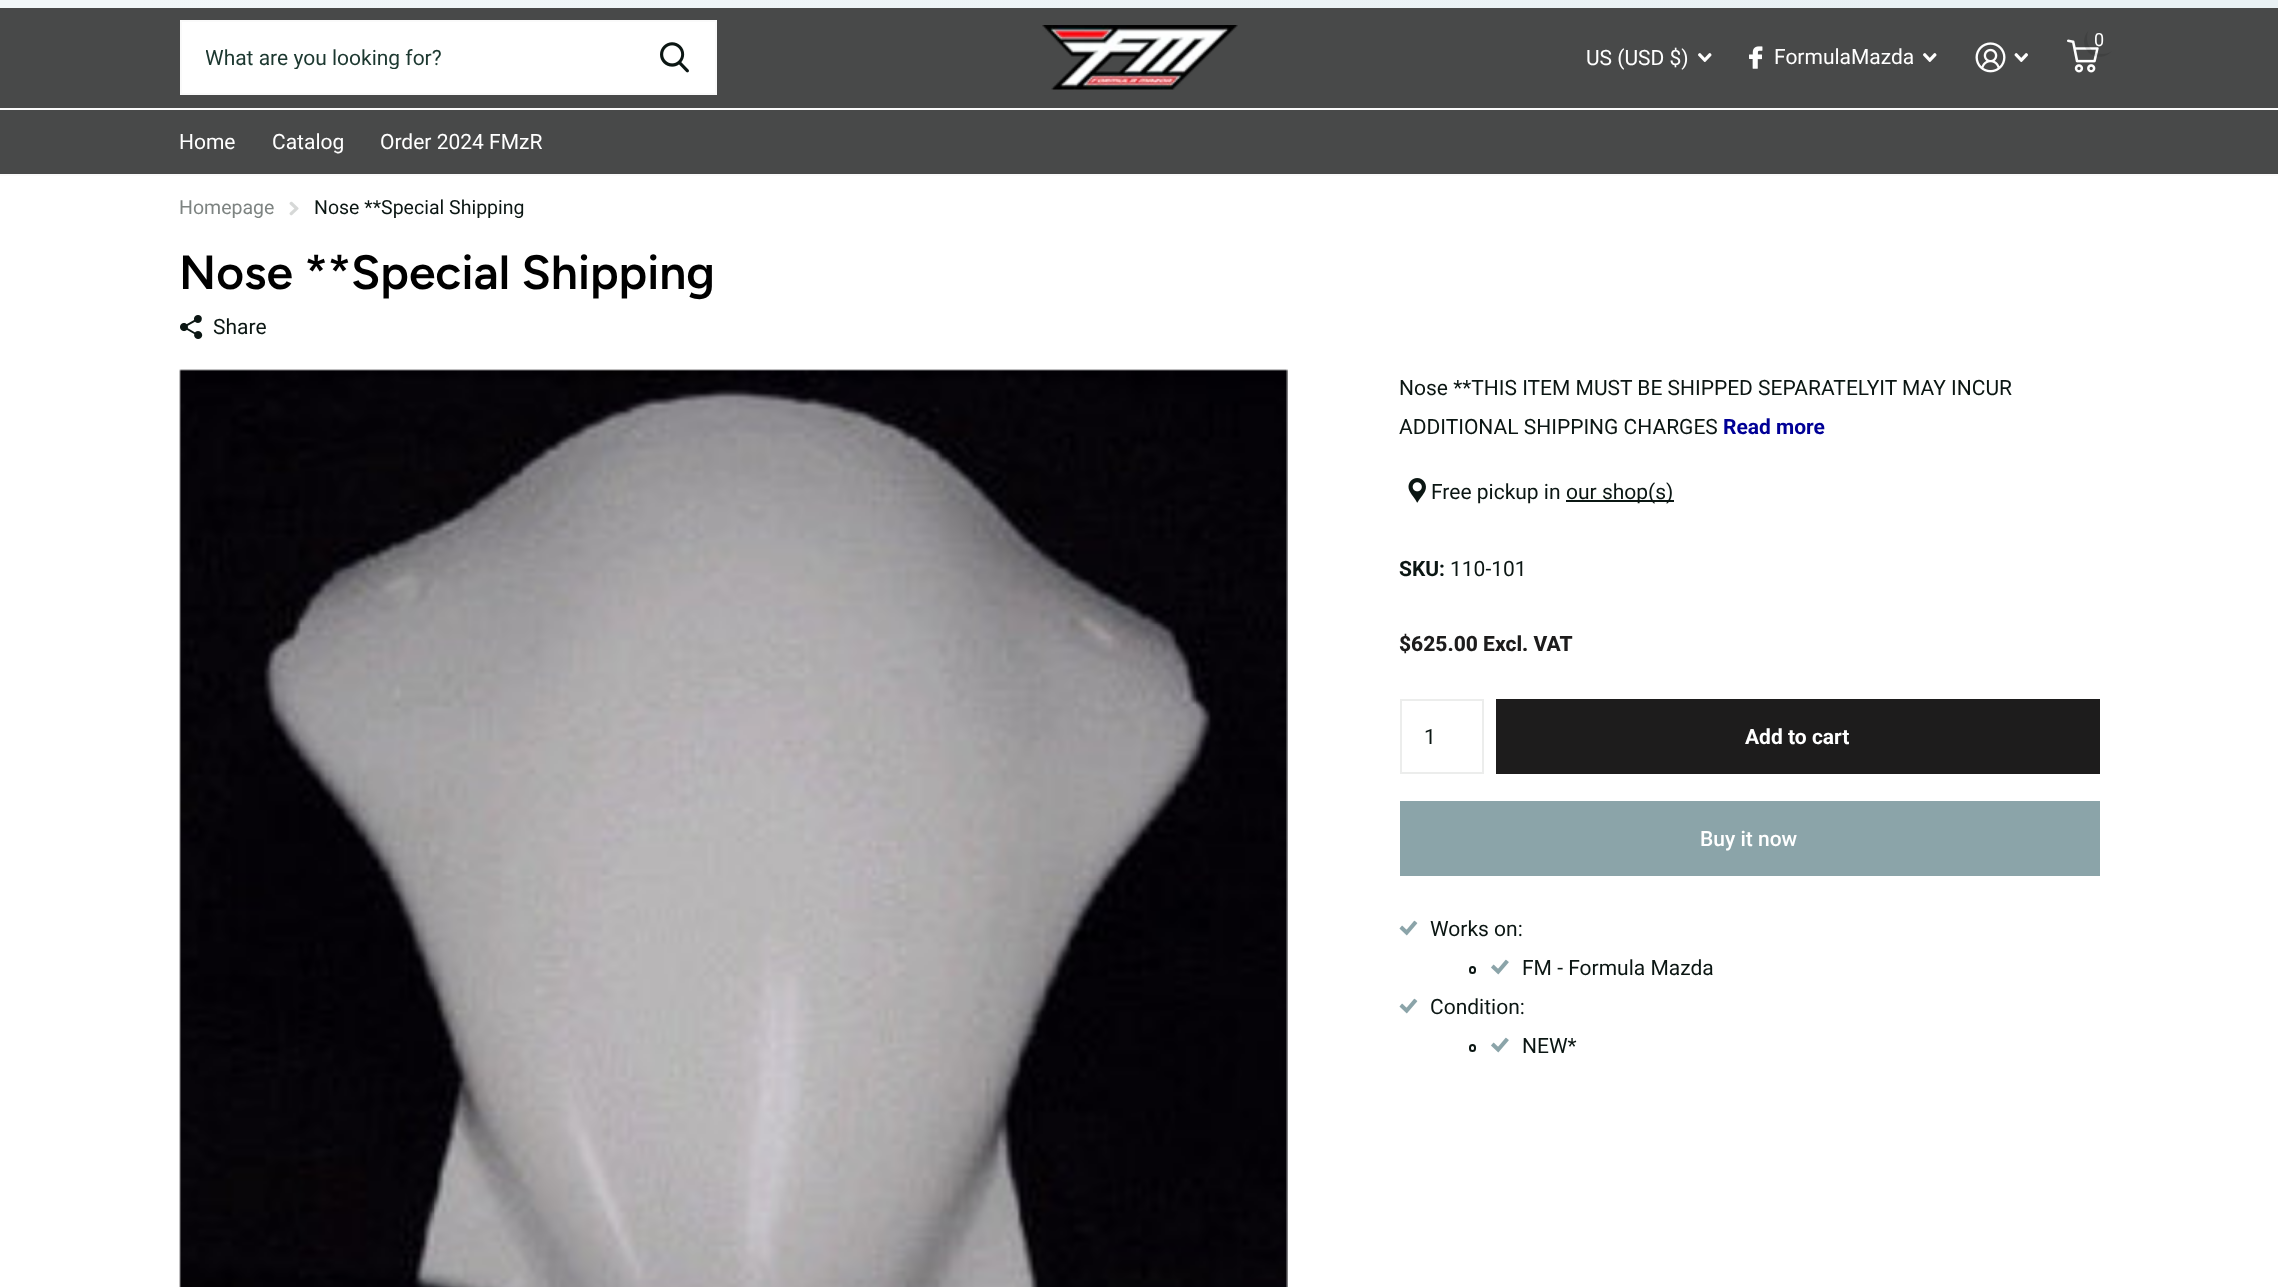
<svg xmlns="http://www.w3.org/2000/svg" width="2278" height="1287">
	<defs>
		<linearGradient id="g1" gradientUnits="userSpaceOnUse" x1="328" y1="-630" x2="1951" y2="594"><stop offset="0.11" stop-color="#F2F7F9" /><stop offset="0.81" stop-color="#E9F1F4" /></linearGradient>
		<clipPath id="clip1"><rect x="206" y="45" width="427" height="24" /></clipPath>
	</defs>
	<rect width="100%" height="100%" fill="#FFFFFF" />
	<rect x="0" y="0" width="2278" height="8" fill="url(#g1)" />
	<rect x="0" y="8" width="2278" height="166" fill="#484949" />
	<rect x="0" y="174" width="2278" height="2" fill="#FAFAFA" />
	<rect x="181" y="21" width="535" height="73" fill="#FFFFFF" stroke="#FAFAFA" stroke-width="2" />
	<g clip-path="url(#clip1)">
		<text x="205" y="65" font-family="Roboto" font-size="21" fill="#1C3830">What are you looking for?</text>
	</g>
	<image x="660" y="42" width="29" height="31" href="assets/img1.png" />
	<image x="1042" y="25" width="196" height="65" href="assets/img2.png" />
	<image x="2067" y="39" width="32" height="34" href="assets/img3.png" />
	<path d="M2112 51C2109.5 53 2106 54 2102 54C2089 54 2084.5 40 2088.5 30.5C2082.5 36.5 2082.5 46.5 2088.5 52.5C2095 59 2106.5 58 2112 51Z" fill="#000000" fill-opacity="0.1" />
	<text x="2094" y="46" font-family="Roboto" font-size="18" fill="#FFFFFF">0</text>
	<text x="1586" y="65" font-family="Roboto" font-size="21" fill="#FFFFFF">US (USD $)</text>
	<image x="1698" y="53" width="14" height="9" href="assets/img4.png" />
	<image x="1749" y="46" width="14" height="23" href="assets/img5.png" />
	<text x="1774" y="64" font-family="Roboto" font-size="21" fill="#FFFFFF">FormulaMazda</text>
	<image x="1923" y="53" width="14" height="9" href="assets/img4.png" />
	<image x="1975" y="42" width="31" height="31" href="assets/img6.png" />
	<image x="2014" y="53" width="14" height="9" href="assets/img7.png" />
	<rect x="0" y="108" width="2278" height="2" fill="#FAFAFA" />
	<g font-family="Roboto" font-size="21" fill="#FFFFFF">
		<text x="179" y="149">Home</text>
		<text x="272" y="149">Catalog</text>
		<text x="380" y="149">Order 2024 FMzR</text>
	</g>
	<text x="179" y="214" font-family="Roboto" font-size="19.5" fill="#7E8482">Homepage</text>
	<image x="289" y="201" width="10" height="15" href="assets/img8.png" />
	<text x="314" y="214" font-family="Roboto" font-size="19.5" fill="#0B1613">Nose **Special Shipping</text>
	<text x="179" y="289" font-family="Figtree" font-size="48" font-weight="600" fill="#000000">Nose **Special Shipping</text>
	<image x="180" y="315" width="23" height="24" href="assets/img9.png" />
	<text x="213" y="334" font-family="Roboto" font-size="21" fill="#0B1613">Share</text>
	<image x="179" y="369" width="1109" height="918" href="assets/img10.png" />
	<g font-family="Roboto" font-size="21" fill="#0B1613">
		<text x="1399" y="395">Nose **THIS ITEM MUST BE SHIPPED SEPARATELYIT MAY INCUR</text>
		<text x="1399" y="434">ADDITIONAL SHIPPING CHARGES</text>
	</g>
	<text x="1723" y="434" font-family="Roboto" font-size="21" font-weight="700" fill="#000096">Read more</text>
	<image x="1408" y="478" width="18" height="25" href="assets/img11.png" />
	<text x="1431" y="499" font-family="Roboto" font-size="21" fill="#0B1613">Free pickup in</text>
	<rect x="1566" y="500" width="108" height="2" fill="#0B1613" />
	<text x="1566" y="499" font-family="Roboto" font-size="21" fill="#0B1613">our shop(s)</text>
	<text x="1399" y="576" font-family="Roboto" font-size="21" font-weight="700" fill="#0B1613">SKU:</text>
	<text x="1450" y="576" font-family="Roboto" font-size="21" fill="#0B1613">110-101</text>
	<text x="1399" y="651" font-family="Roboto" font-size="21" font-weight="800" fill="#1D1C1C">$625.00 Excl. VAT</text>
	<rect x="1401" y="700" width="82" height="73" fill="none" stroke="#ECEDEC" stroke-width="2" />
	<text x="1424" y="744" font-family="Roboto" font-size="21" fill="#0B1613">1</text>
	<rect x="1496" y="699" width="604" height="75" fill="#1D1C1C" />
	<text x="1745" y="744" font-family="Roboto" font-size="21" font-weight="700" fill="#FFFFFF">Add to cart</text>
	<rect x="1400" y="801" width="700" height="75" fill="#8BA4A9" />
	<text x="1700" y="846" font-family="Roboto" font-size="21" font-weight="500" fill="#FFFFFF">Buy it now</text>
	<image x="1399" y="920" width="19" height="16" href="assets/img12.png" />
	<text x="1430" y="936" font-family="Roboto" font-size="21" fill="#0B1613">Works on:</text>
	<rect x="1470" y="967" width="5" height="6" rx="2.5" fill="none" stroke="#0B1613" stroke-width="2" />
	<image x="1491" y="959" width="18" height="16" href="assets/img13.png" />
	<text x="1522" y="975" font-family="Roboto" font-size="21" fill="#0B1613">FM - Formula Mazda</text>
	<image x="1399" y="998" width="19" height="16" href="assets/img12.png" />
	<text x="1430" y="1014" font-family="Roboto" font-size="21" fill="#0B1613">Condition:</text>
	<rect x="1470" y="1045" width="5" height="6" rx="2.5" fill="none" stroke="#0B1613" stroke-width="2" />
	<image x="1491" y="1037" width="18" height="16" href="assets/img13.png" />
	<text x="1522" y="1053" font-family="Roboto" font-size="21" fill="#0B1613">NEW*</text>
</svg>
